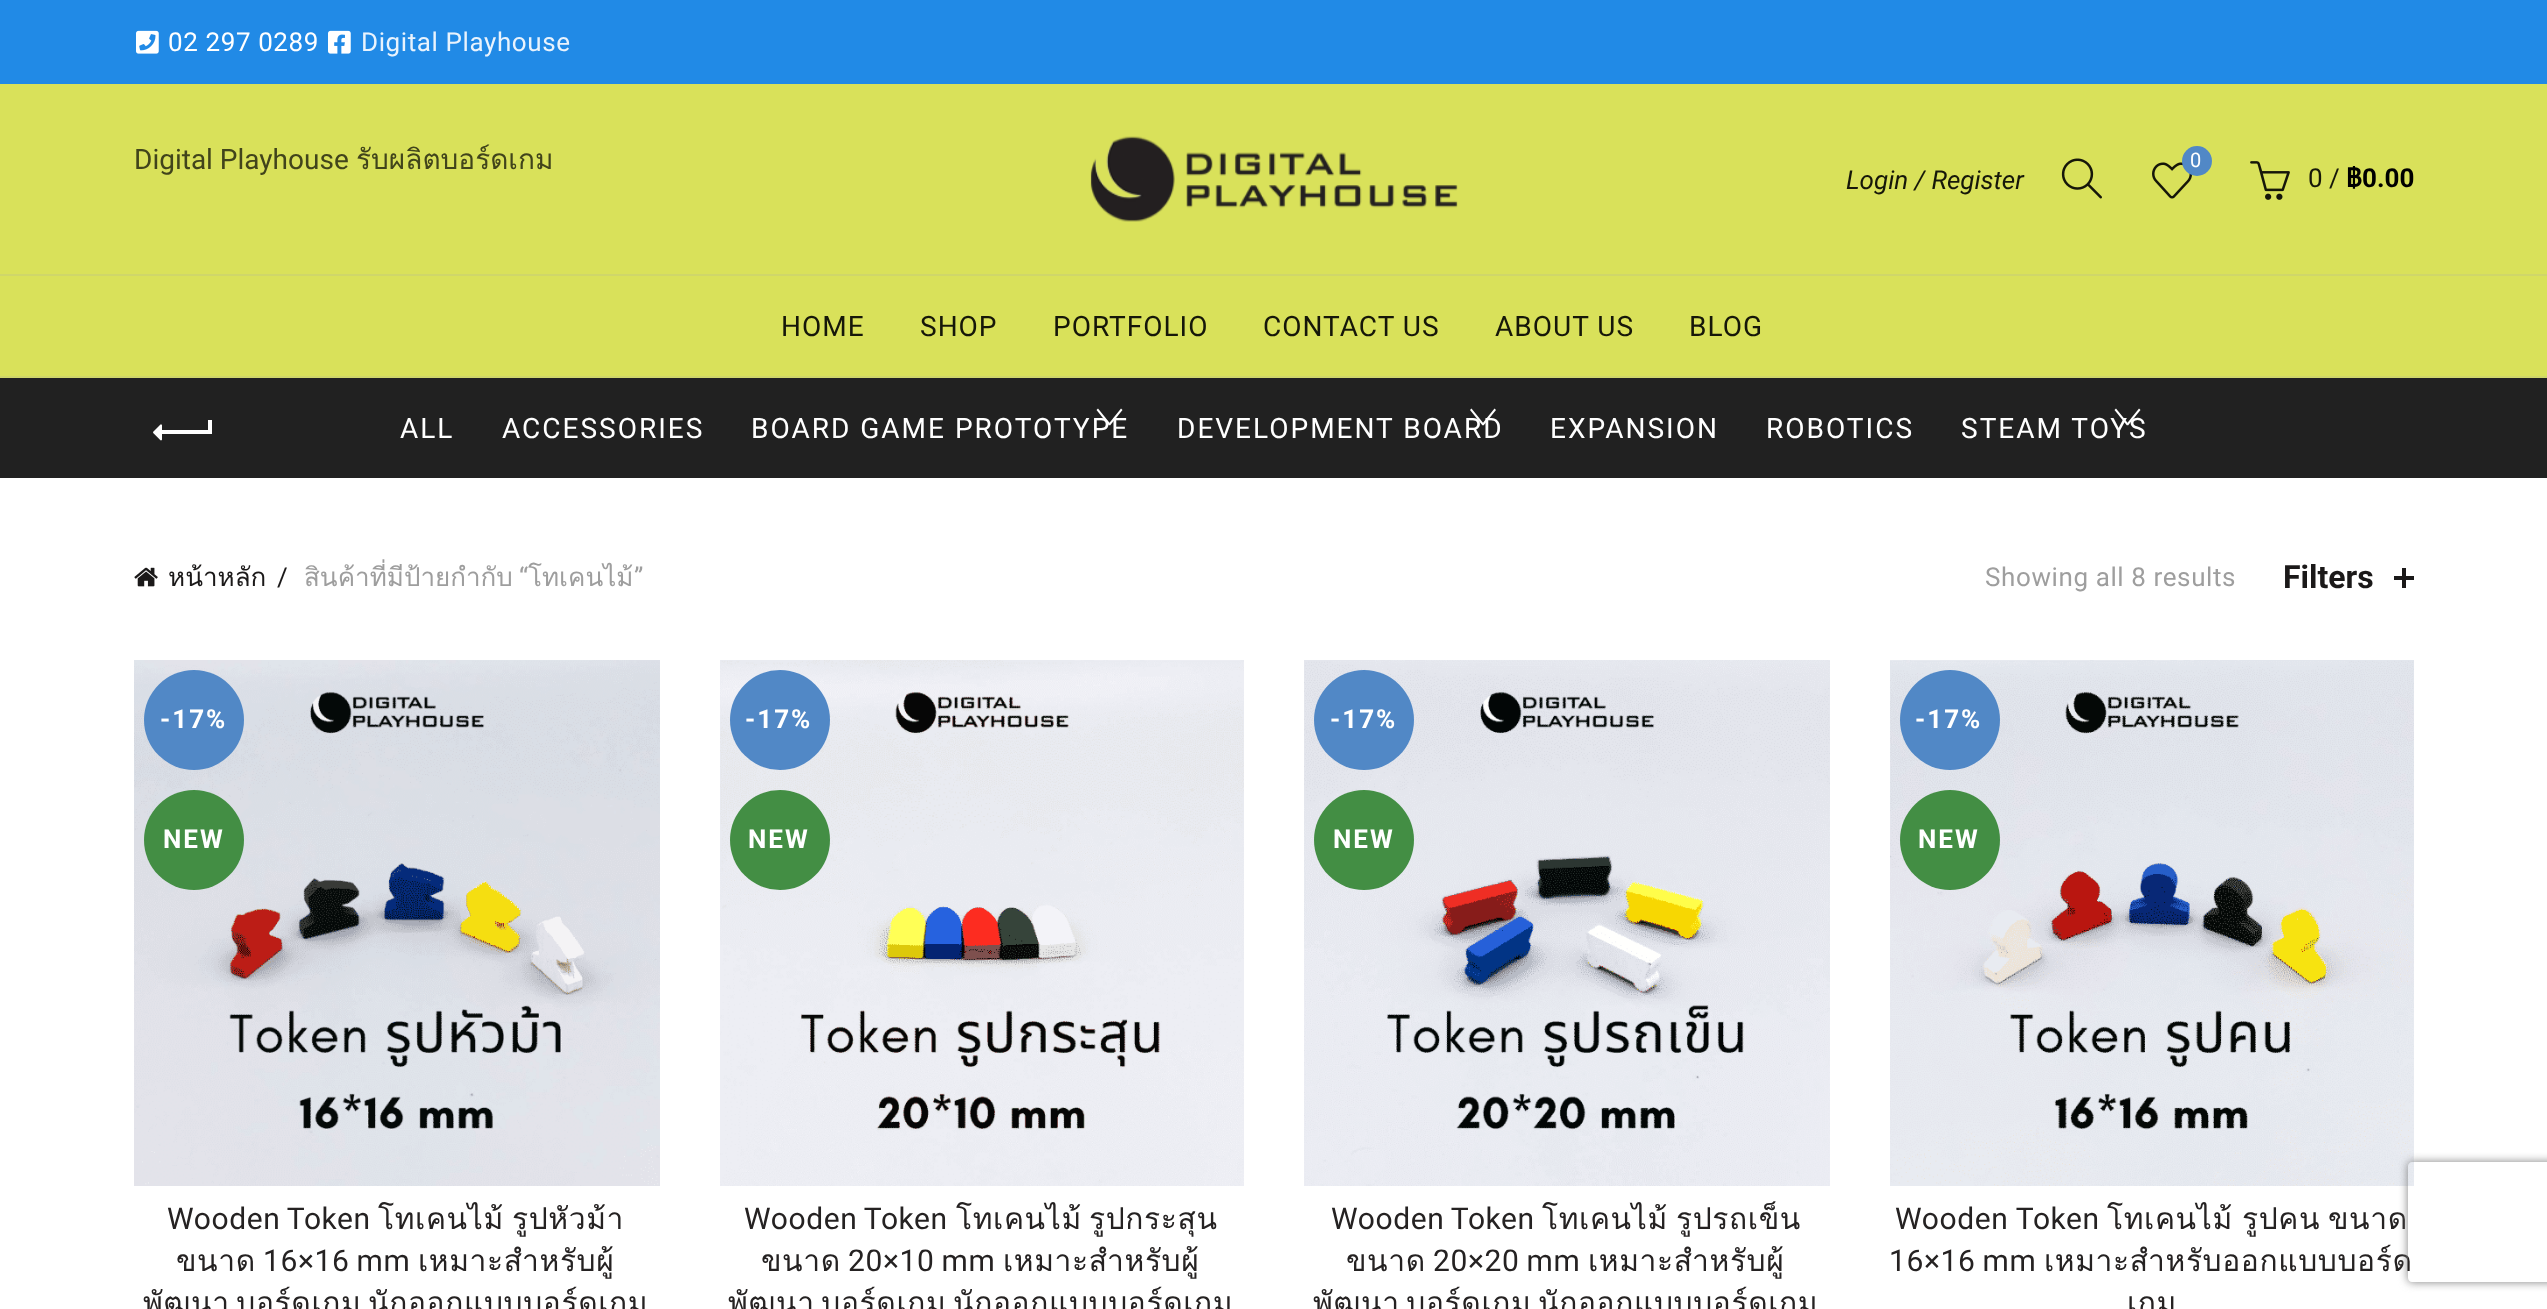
<svg xmlns="http://www.w3.org/2000/svg" width="2547" height="1309">
	<defs>
		<clipPath id="clip1"><path d="M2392 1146H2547V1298H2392ZM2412 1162H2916C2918 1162 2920 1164 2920 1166V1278C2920 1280 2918 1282 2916 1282H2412C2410 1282 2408 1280 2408 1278V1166C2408 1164 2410 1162 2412 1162Z" clip-rule="evenodd" /></clipPath>
	</defs>
	<rect width="100%" height="100%" fill="#FFFFFF" />
	<rect x="0" y="0" width="2547" height="84" fill="#218AE6" />
	<image x="136" y="30" width="23" height="24" href="assets/img1.png" />
	<text x="168" y="51" font-family="Roboto" font-size="26" letter-spacing="0.6" fill="#FFFFFF">02 297 0289</text>
	<image x="328" y="30" width="23" height="24" href="assets/img2.png" />
	<text x="361" y="51" font-family="Roboto" font-size="26" letter-spacing="0.6" fill="#E9F3FD">Digital Playhouse</text>
	<rect x="0" y="84" width="2547" height="292" fill="#D9E15A" />
	<text x="134" y="169" font-family="Roboto" font-size="28" fill="#41441B">Digital Playhouse</text>
	<text x="356" y="169" font-family="Loma" font-size="28" fill="#41441B">รับผลิตบอร์ดเกม</text>
	<image x="1090" y="136" width="368" height="86" href="assets/img3.png" />
	<text x="1846" y="189" font-family="Roboto" font-size="26" font-style="italic" fill="#161709">Login / Register</text>
	<image x="2061" y="158" width="41" height="41" href="assets/img4.png" />
	<image x="2152" y="162" width="40" height="37" href="assets/img5.png" />
	<circle cx="2197" cy="161" r="15" fill="#5188C6" />
	<text x="2190" y="167" font-family="Roboto" font-size="20" fill="#FFFFFF">0</text>
	<image x="2250" y="161" width="40" height="39" href="assets/img6.png" />
	<text x="2308" y="187" font-family="Roboto" font-size="26" fill="#161709">0 /</text>
	<text x="2346" y="187" font-family="Loma" font-size="26" font-weight="700" fill="#000000">฿</text>
	<text x="2362" y="187" font-family="Roboto" font-size="26" font-weight="700" fill="#000000">0.00</text>
	<rect x="0" y="274" width="2547" height="2" fill="#CFD66A" />
	<rect x="0" y="376" width="2547" height="2" fill="#CFD66A" />
	<g font-family="Roboto" font-size="28" letter-spacing="1" fill="#161709">
		<text x="781" y="336">HOME</text>
		<text x="920" y="336">SHOP</text>
		<text x="1053" y="336">PORTFOLIO</text>
		<text x="1263" y="336">CONTACT US</text>
		<text x="1495" y="336">ABOUT US</text>
		<text x="1689" y="336">BLOG</text>
	</g>
	<rect x="0" y="378" width="2547" height="100" fill="#212121" />
	<rect x="160" y="430" width="50" height="4" fill="#FFFFFF" />
	<image x="153" y="424" width="9" height="17" href="assets/img7.png" />
	<rect x="208" y="420" width="4" height="14" fill="#FFFFFF" />
	<g font-family="Roboto" font-size="28" letter-spacing="2" fill="#FFFFFF">
		<text x="400" y="438">ALL</text>
		<text x="502" y="438">ACCESSORIES</text>
	</g>
	<path d="M1108.5 424L1121 408.5L1122.5 410L1110 425.5Z" fill="#FFFFFF" />
	<path d="M1098 408.5L1110.5 424L1109 425.5L1096.5 410Z" fill="#FFFFFF" />
	<text x="751" y="438" font-family="Roboto" font-size="28" letter-spacing="2" fill="#FFFFFF">BOARD GAME PROTOTYPE</text>
	<path d="M1482 424L1494.5 408.5L1496 410L1483.5 425.5Z" fill="#FFFFFF" />
	<path d="M1471.5 408.5L1484 424L1482.5 425.5L1470 410Z" fill="#FFFFFF" />
	<g font-family="Roboto" font-size="28" letter-spacing="2" fill="#FFFFFF">
		<text x="1177" y="438">DEVELOPMENT BOARD</text>
		<text x="1550" y="438">EXPANSION</text>
		<text x="1766" y="438">ROBOTICS</text>
	</g>
	<path d="M2126.5 424L2139 408.5L2140.5 410L2128 425.5Z" fill="#FFFFFF" />
	<path d="M2116 408.5L2128.5 424L2127 425.5L2114.5 410Z" fill="#FFFFFF" />
	<text x="1961" y="438" font-family="Roboto" font-size="28" letter-spacing="2" fill="#FFFFFF">STEAM TOYS</text>
	<image x="134" y="567" width="24" height="20" href="assets/img8.png" />
	<text x="168" y="586" font-family="Loma" font-size="26" fill="#1B1919">หน้าหลัก</text>
	<text x="277" y="586" font-family="Roboto" font-size="26" fill="#1B1919">/</text>
	<text x="304" y="586" font-family="Loma" font-size="26" fill="#9E9E9E">สินค้าที่มีป้ายกำกับ</text>
	<text x="519" y="586" font-family="Roboto" font-size="26" fill="#9E9E9E">“</text>
	<text x="528" y="586" font-family="Loma" font-size="26" fill="#9E9E9E">โทเคนไม้</text>
	<text x="634" y="586" font-family="Roboto" font-size="26" fill="#9E9E9E">”</text>
	<text x="1985" y="586" font-family="Roboto" font-size="26" letter-spacing="0.6" fill="#9E9E9E">Showing all 8 results</text>
	<text x="2283" y="588" font-family="Roboto" font-size="32" font-weight="700" fill="#1B1919">Filters</text>
	<rect x="2402" y="568" width="4" height="20" fill="#1B1919" />
	<rect x="2394" y="576" width="20" height="4" fill="#1B1919" />
	<image x="134" y="660" width="526" height="526" href="assets/img9.png" />
	<circle cx="194" cy="720" r="50" fill="#5188C6" />
	<text x="160" y="728" font-family="Roboto" font-size="26" font-weight="700" letter-spacing="2" fill="#FFFFFF">-17%</text>
	<circle cx="194" cy="840" r="50" fill="#438E44" />
	<text x="163" y="848" font-family="Roboto" font-size="26" font-weight="700" letter-spacing="2" fill="#FFFFFF">NEW</text>
	<text x="167" y="1229" word-spacing="-1" font-family="Roboto" font-size="30" letter-spacing="0.6" fill="#252222">Wooden Token</text>
	<g font-family="Loma" font-size="30" letter-spacing="0.6" fill="#252222">
		<text x="378" y="1229">โทเคนไม้</text>
		<text x="512" y="1229">รูปหัวม้า</text>
		<text x="176" y="1271">ขนาด</text>
	</g>
	<text x="263" y="1271" word-spacing="-1" font-family="Roboto" font-size="30" letter-spacing="0.6" fill="#252222">16×16 mm</text>
	<g font-family="Loma" font-size="30" letter-spacing="0.6" fill="#252222">
		<text x="418" y="1271">เหมาะสำหรับผู้</text>
		<text x="143" y="1313" word-spacing="-4">พัฒนา บอร์ดเกม นักออกแบบบอร์ดเกม</text>
	</g>
	<image x="720" y="660" width="524" height="526" href="assets/img10.png" />
	<circle cx="780" cy="720" r="50" fill="#5188C6" />
	<text x="745" y="728" font-family="Roboto" font-size="26" font-weight="700" letter-spacing="2" fill="#FFFFFF">-17%</text>
	<circle cx="780" cy="840" r="50" fill="#438E44" />
	<text x="748" y="848" font-family="Roboto" font-size="26" font-weight="700" letter-spacing="2" fill="#FFFFFF">NEW</text>
	<text x="744" y="1229" word-spacing="-1" font-family="Roboto" font-size="30" letter-spacing="0.6" fill="#252222">Wooden Token</text>
	<g font-family="Loma" font-size="30" letter-spacing="0.6" fill="#252222">
		<text x="956" y="1229">โทเคนไม้</text>
		<text x="1089" y="1229">รูปกระสุน</text>
		<text x="761" y="1271">ขนาด</text>
	</g>
	<text x="848" y="1271" word-spacing="-1" font-family="Roboto" font-size="30" letter-spacing="0.6" fill="#252222">20×10 mm</text>
	<g font-family="Loma" font-size="30" letter-spacing="0.6" fill="#252222">
		<text x="1003" y="1271">เหมาะสำหรับผู้</text>
		<text x="728" y="1313" word-spacing="-4">พัฒนา บอร์ดเกม นักออกแบบบอร์ดเกม</text>
	</g>
	<image x="1304" y="660" width="526" height="526" href="assets/img11.png" />
	<circle cx="1364" cy="720" r="50" fill="#5188C6" />
	<text x="1330" y="728" font-family="Roboto" font-size="26" font-weight="700" letter-spacing="2" fill="#FFFFFF">-17%</text>
	<circle cx="1364" cy="840" r="50" fill="#438E44" />
	<text x="1333" y="848" font-family="Roboto" font-size="26" font-weight="700" letter-spacing="2" fill="#FFFFFF">NEW</text>
	<text x="1331" y="1229" word-spacing="-1" font-family="Roboto" font-size="30" letter-spacing="0.6" fill="#252222">Wooden Token</text>
	<g font-family="Loma" font-size="30" letter-spacing="0.6" fill="#252222">
		<text x="1542" y="1229">โทเคนไม้</text>
		<text x="1676" y="1229">รูปรถเข็น</text>
		<text x="1346" y="1271">ขนาด</text>
	</g>
	<text x="1433" y="1271" word-spacing="-1" font-family="Roboto" font-size="30" letter-spacing="0.6" fill="#252222">20×20 mm</text>
	<g font-family="Loma" font-size="30" letter-spacing="0.6" fill="#252222">
		<text x="1588" y="1271">เหมาะสำหรับผู้</text>
		<text x="1313" y="1313" word-spacing="-4">พัฒนา บอร์ดเกม นักออกแบบบอร์ดเกม</text>
	</g>
	<image x="1890" y="660" width="524" height="526" href="assets/img12.png" />
	<circle cx="1950" cy="720" r="50" fill="#5188C6" />
	<text x="1915" y="728" font-family="Roboto" font-size="26" font-weight="700" letter-spacing="2" fill="#FFFFFF">-17%</text>
	<circle cx="1950" cy="840" r="50" fill="#438E44" />
	<text x="1918" y="848" font-family="Roboto" font-size="26" font-weight="700" letter-spacing="2" fill="#FFFFFF">NEW</text>
	<text x="1895" y="1229" font-family="Roboto" font-size="30" letter-spacing="0.6" fill="#252222">Wooden Token</text>
	<g font-family="Loma" font-size="30" letter-spacing="0.6" fill="#252222">
		<text x="2107" y="1229">โทเคนไม้</text>
		<text x="2242" y="1229">รูปคน</text>
		<text x="2328" y="1229">ขนาด</text>
	</g>
	<text x="1889" y="1271" word-spacing="-1" font-family="Roboto" font-size="30" letter-spacing="0.6" fill="#252222">16×16 mm</text>
	<g font-family="Loma" font-size="30" letter-spacing="0.6" fill="#252222">
		<text x="2044" y="1271">เหมาะสำหรับออกแบบบอร์ด</text>
		<text x="2127" y="1313">เกม</text>
	</g>
	<g clip-path="url(#clip1)">
		<rect x="2408" y="1162" width="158" height="120" rx="4" fill="#808080" filter="blur(5px)" />
	</g>
</svg>
